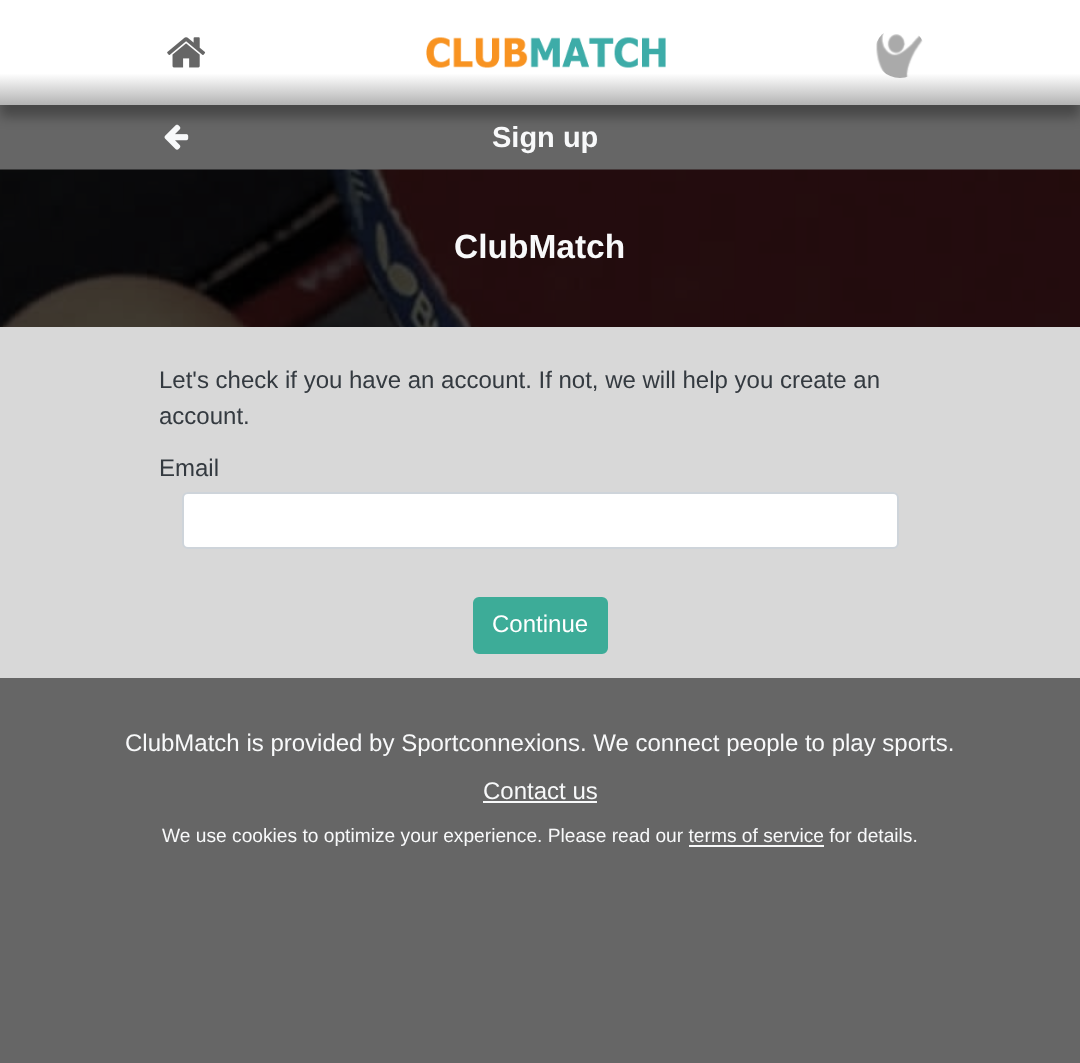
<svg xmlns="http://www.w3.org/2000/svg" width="1080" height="1063">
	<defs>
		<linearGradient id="g1" gradientUnits="userSpaceOnUse" x1="540" y1="0" x2="540" y2="105"><stop offset="0" stop-color="#FFFFFF" /><stop offset="0.7" stop-color="#FFFFFF" /><stop offset="1" stop-color="#B3B3B3" /></linearGradient>
	</defs>
	<rect width="100%" height="100%" fill="#666666" />
	<image x="164" y="124" width="25" height="26" href="assets/img4.png" />
	<rect x="0" y="12" width="1080" height="105" fill="#000000" fill-opacity="0.3" filter="blur(6px)" />
	<rect x="0" y="0" width="1080" height="105" fill="url(#g1)" />
	<image x="167" y="37" width="39" height="31" href="assets/img1.png" />
	<image x="426" y="37" width="240" height="31" href="assets/img2.png" />
	<image x="876" y="33" width="47" height="45" href="assets/img3.png" />
	<text x="492" y="147" font-family="Liberation Sans" font-size="29" font-weight="700" fill="#F8F9FA">Sign up</text>
	<rect x="0" y="327" width="1080" height="351" fill="#D8D8D8" />
	<image x="0" y="169" width="1080" height="158" href="assets/img5.png" />
	<text x="454" y="258" font-family="Liberation Sans" font-size="33.5" font-weight="700" fill="#F8F9FA">ClubMatch</text>
	<g font-family="Liberation Sans" font-size="24" fill="#343A40">
		<text x="159" y="388">Let's check if you have an account. If not, we will help you create an</text>
		<text x="159" y="424">account.</text>
		<text x="159" y="476">Email</text>
	</g>
	<rect x="183" y="493" width="715" height="55" rx="5" fill="#FFFFFF" stroke="#CED4DA" stroke-width="2" />
	<rect x="474" y="598" width="133" height="55" rx="5" fill="#3DAC98" stroke="#3DAC98" stroke-width="2" />
	<text x="492" y="632" font-family="Liberation Sans" font-size="24" fill="#FFFFFF">Continue</text>
	<g font-family="Liberation Sans" font-size="24" fill="#F8F9FA">
		<text x="125" y="751">ClubMatch is provided by Sportconnexions. We connect people to play sports.</text>
		<text x="483" y="799">Contact us</text>
	</g>
	<rect x="483" y="801" width="114" height="2" fill="#F8F9FA" />
	<text x="162" y="842" font-family="Liberation Sans" font-size="19.2" fill="#F8F9FA">We use cookies to optimize your experience. Please read our terms of service for details.</text>
	<rect x="689" y="845" width="135" height="2" fill="#F8F9FA" />
</svg>
